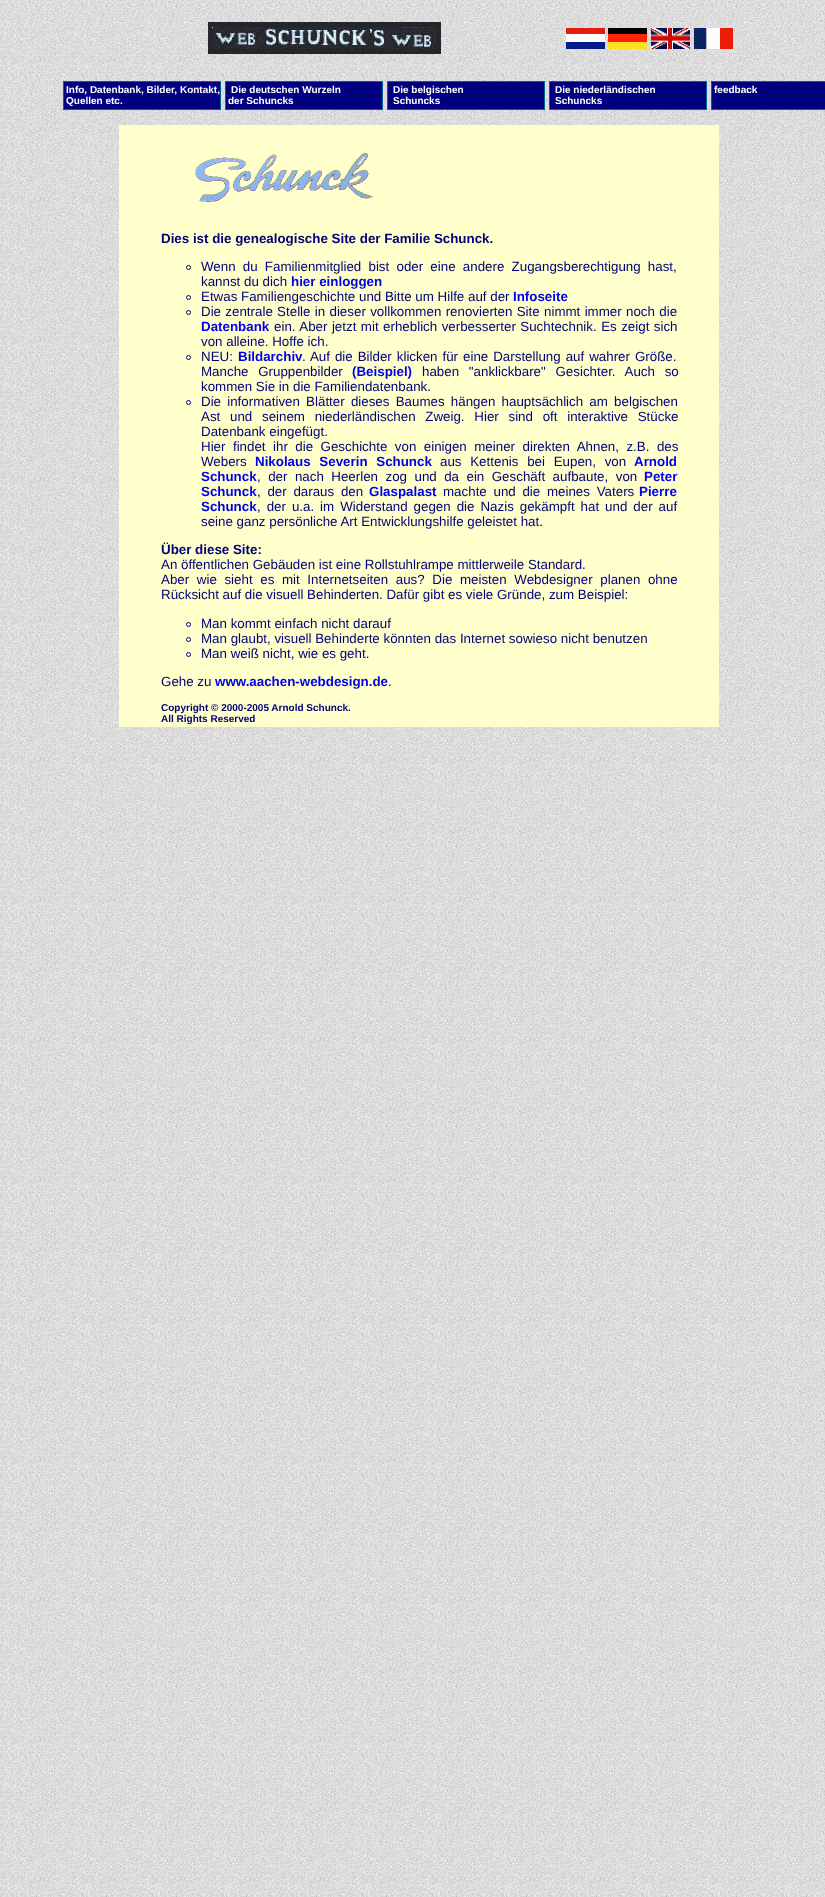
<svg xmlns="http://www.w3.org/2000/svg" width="825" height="1897">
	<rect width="100%" height="100%" fill="#FFFFFF" />
	<image x="0" y="0" width="825" height="1897" href="assets/img1.png" />
	<rect x="63" y="81" width="158" height="29" fill="#006699" />
	<rect x="64" y="82" width="156" height="27" fill="#000080" />
	<g font-family="Liberation Sans" font-size="10" font-weight="700" fill="#FFFFFF">
		<text x="66" y="93">Info, Datenbank, Bilder, Kontakt,</text>
		<text x="66" y="104">Quellen etc.</text>
	</g>
	<rect x="225" y="81" width="158" height="29" fill="#006699" />
	<rect x="226" y="82" width="156" height="27" fill="#000080" />
	<g font-family="Liberation Sans" font-size="10" font-weight="700" fill="#FFFFFF">
		<text x="231" y="93">Die deutschen Wurzeln</text>
		<text x="228" y="104">der Schuncks</text>
	</g>
	<rect x="387" y="81" width="158" height="29" fill="#006699" />
	<rect x="388" y="82" width="156" height="27" fill="#000080" />
	<g font-family="Liberation Sans" font-size="10" font-weight="700" fill="#FFFFFF">
		<text x="393" y="93">Die belgischen</text>
		<text x="393" y="104">Schuncks</text>
	</g>
	<rect x="549" y="81" width="158" height="29" fill="#006699" />
	<rect x="550" y="82" width="156" height="27" fill="#000080" />
	<g font-family="Liberation Sans" font-size="10" font-weight="700" fill="#FFFFFF">
		<text x="555" y="93">Die niederländischen</text>
		<text x="555" y="104">Schuncks</text>
	</g>
	<rect x="711" y="81" width="114" height="29" fill="#006699" />
	<rect x="712" y="82" width="113" height="27" fill="#000080" />
	<text x="714" y="93" font-family="Liberation Sans" font-size="10" font-weight="700" fill="#FFFFFF">feedback</text>
	<image x="208" y="22" width="233" height="32" href="assets/img2.png" />
	<image x="566" y="28" width="39" height="21" href="assets/img3.png" />
	<image x="608" y="28" width="39" height="21" href="assets/img4.png" />
	<image x="651" y="28" width="39" height="21" href="assets/img5.png" />
	<image x="694" y="28" width="39" height="21" href="assets/img6.png" />
	<rect x="119" y="125" width="600" height="602" fill="#FFFFCC" />
	<image x="195" y="153" width="178" height="49" href="assets/img7.png" />
	<text x="161" y="243" font-family="Liberation Sans" font-size="13.35" font-weight="700" fill="#000077">Dies ist die genealogische Site der Familie Schunck.</text>
	<circle cx="188.5" cy="267.5" r="2" fill="none" stroke="#000077" />
	<g font-family="Liberation Sans" font-size="13.35" fill="#000077">
		<text x="201" y="271" word-spacing="3.5">Wenn du Familienmitglied bist oder eine andere Zugangsberechtigung hast,</text>
		<text x="201" y="286">kannst du dich</text>
	</g>
	<text x="291" y="286" font-family="Liberation Sans" font-size="13.35" font-weight="700" fill="#0000EE">hier einloggen</text>
	<circle cx="188.5" cy="297.5" r="2" fill="none" stroke="#000077" />
	<text x="201" y="301" font-family="Liberation Sans" font-size="13.35" fill="#000077">Etwas Familiengeschichte und Bitte um Hilfe auf der</text>
	<text x="513" y="301" font-family="Liberation Sans" font-size="13.35" font-weight="700" fill="#0000EE">Infoseite</text>
	<circle cx="188.5" cy="312.5" r="2" fill="none" stroke="#000077" />
	<text x="201" y="316" word-spacing="0.6" font-family="Liberation Sans" font-size="13.35" fill="#000077">Die zentrale Stelle in dieser vollkommen renovierten Site nimmt immer noch die</text>
	<text x="201" y="331" font-family="Liberation Sans" font-size="13.35" font-weight="700" fill="#0000EE">Datenbank</text>
	<g font-family="Liberation Sans" font-size="13.35" fill="#000077">
		<text x="274" y="331" word-spacing="0.75">ein. Aber jetzt mit erheblich verbesserter Suchtechnik. Es zeigt sich</text>
		<text x="201" y="346">von alleine. Hoffe ich.</text>
	</g>
	<circle cx="188.5" cy="357.5" r="2" fill="none" stroke="#000077" />
	<text x="201" y="361" font-family="Liberation Sans" font-size="13.35" fill="#000077">NEU:</text>
	<text x="238" y="361" font-family="Liberation Sans" font-size="13.35" font-weight="700" fill="#0000EE">Bildarchiv</text>
	<g font-family="Liberation Sans" font-size="13.35" fill="#000077">
		<text x="302" y="361" word-spacing="1.25">. Auf die Bilder klicken für eine Darstellung auf wahrer Größe.</text>
		<text x="201" y="376" word-spacing="6">Manche Gruppenbilder</text>
	</g>
	<text x="352" y="376" font-family="Liberation Sans" font-size="13.35" font-weight="700" fill="#0000EE">(Beispiel)</text>
	<g font-family="Liberation Sans" font-size="13.35" fill="#000077">
		<text x="422" y="376" word-spacing="6">haben "anklickbare" Gesichter. Auch so</text>
		<text x="201" y="391">kommen Sie in die Familiendatenbank.</text>
	</g>
	<circle cx="188.5" cy="402.5" r="2" fill="none" stroke="#000077" />
	<g font-family="Liberation Sans" font-size="13.35" fill="#000077">
		<text x="201" y="406" word-spacing="2.5">Die informativen Blätter dieses Baumes hängen hauptsächlich am belgischen</text>
		<text x="201" y="421" word-spacing="6">Ast und seinem niederländischen Zweig. Hier sind oft interaktive Stücke</text>
		<text x="201" y="436">Datenbank eingefügt.</text>
		<text x="201" y="451" word-spacing="3.75">Hier findet ihr die Geschichte von einigen meiner direkten Ahnen, z.B. des</text>
		<text x="201" y="466">Webers</text>
	</g>
	<text x="255" y="466" word-spacing="5" font-family="Liberation Sans" font-size="13.35" font-weight="700" fill="#0000EE">Nikolaus Severin Schunck</text>
	<text x="440" y="466" word-spacing="5" font-family="Liberation Sans" font-size="13.35" fill="#000077">aus Kettenis bei Eupen, von</text>
	<g font-family="Liberation Sans" font-size="13.35" font-weight="700" fill="#0000EE">
		<text x="634" y="466">Arnold</text>
		<text x="201" y="481">Schunck</text>
	</g>
	<text x="257" y="481" word-spacing="3.75" font-family="Liberation Sans" font-size="13.35" fill="#000077">, der nach Heerlen zog und da ein Geschäft aufbaute, von</text>
	<g font-family="Liberation Sans" font-size="13.35" font-weight="700" fill="#0000EE">
		<text x="644" y="481">Peter</text>
		<text x="201" y="496">Schunck</text>
	</g>
	<text x="257" y="496" word-spacing="3" font-family="Liberation Sans" font-size="13.35" fill="#000077">, der daraus den</text>
	<text x="369" y="496" font-family="Liberation Sans" font-size="13.35" font-weight="700" fill="#0000EE">Glaspalast</text>
	<text x="443" y="496" word-spacing="3" font-family="Liberation Sans" font-size="13.35" fill="#000077">machte und die meines Vaters</text>
	<g font-family="Liberation Sans" font-size="13.35" font-weight="700" fill="#0000EE">
		<text x="639" y="496">Pierre</text>
		<text x="201" y="511">Schunck</text>
	</g>
	<g font-family="Liberation Sans" font-size="13.35" fill="#000077">
		<text x="257" y="511" word-spacing="2.25">, der u.a. im Widerstand gegen die Nazis gekämpft hat und der auf</text>
		<text x="201" y="526">seine ganz persönliche Art Entwicklungshilfe geleistet hat.</text>
	</g>
	<text x="161" y="554" font-family="Liberation Sans" font-size="13.35" font-weight="700" fill="#000077">Über diese Site:</text>
	<g font-family="Liberation Sans" font-size="13.35" fill="#000077">
		<text x="161" y="569">An öffentlichen Gebäuden ist eine Rollstuhlrampe mittlerweile Standard.</text>
		<text x="161" y="584" word-spacing="3.9">Aber wie sieht es mit Internetseiten aus? Die meisten Webdesigner planen ohne</text>
		<text x="161" y="599">Rücksicht auf die visuell Behinderten. Dafür gibt es viele Gründe, zum Beispiel:</text>
	</g>
	<circle cx="188.5" cy="624.5" r="2" fill="none" stroke="#000077" />
	<text x="201" y="628" font-family="Liberation Sans" font-size="13.35" fill="#000077">Man kommt einfach nicht darauf</text>
	<circle cx="188.5" cy="639.5" r="2" fill="none" stroke="#000077" />
	<text x="201" y="643" font-family="Liberation Sans" font-size="13.35" fill="#000077">Man glaubt, visuell Behinderte könnten das Internet sowieso nicht benutzen</text>
	<circle cx="188.5" cy="654.5" r="2" fill="none" stroke="#000077" />
	<g font-family="Liberation Sans" font-size="13.35" fill="#000077">
		<text x="201" y="658">Man weiß nicht, wie es geht.</text>
		<text x="161" y="686">Gehe zu</text>
	</g>
	<text x="215" y="686" font-family="Liberation Sans" font-size="13.35" font-weight="700" fill="#0000EE">www.aachen-webdesign.de</text>
	<text x="388" y="686" font-family="Liberation Sans" font-size="13.35" fill="#000077">.</text>
	<g font-family="Liberation Sans" font-size="10" font-weight="700" fill="#000077">
		<text x="161" y="711">Copyright © 2000-2005 Arnold Schunck.</text>
		<text x="161" y="722">All Rights Reserved</text>
	</g>
</svg>
